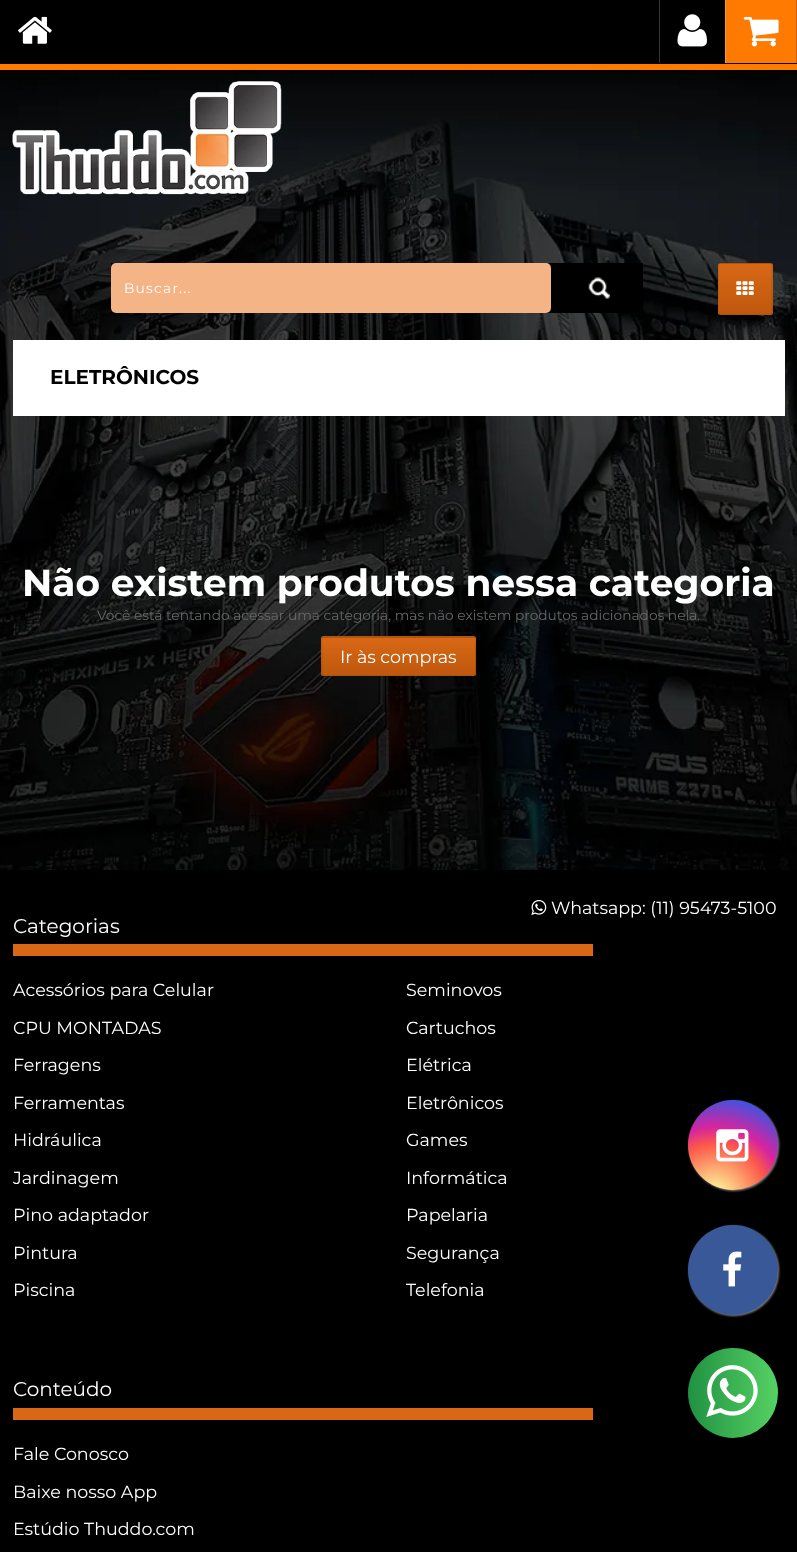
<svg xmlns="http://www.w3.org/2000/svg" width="797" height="1552">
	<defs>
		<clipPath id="clip1"><rect x="718" y="263" width="55" height="52" rx="2.5" /></clipPath>
		<linearGradient id="g1" gradientUnits="userSpaceOnUse" x1="745" y1="214" x2="745" y2="264"><stop offset="0" stop-color="#D86816" /><stop offset="1" stop-color="#BF580D" /></linearGradient>
		<linearGradient id="g2" gradientUnits="userSpaceOnUse" x1="745" y1="264" x2="745" y2="314"><stop offset="0" stop-color="#D86816" /><stop offset="1" stop-color="#BF580D" /></linearGradient>
		<linearGradient id="g3" gradientUnits="userSpaceOnUse" x1="745" y1="314" x2="745" y2="364"><stop offset="0" stop-color="#D86816" /><stop offset="1" stop-color="#BF580D" /></linearGradient>
		<clipPath id="clip2"><rect x="321" y="636" width="155" height="40" rx="2.5" /></clipPath>
		<linearGradient id="g4" gradientUnits="userSpaceOnUse" x1="399" y1="600" x2="399" y2="638"><stop offset="0" stop-color="#D86816" /><stop offset="1" stop-color="#BF580D" /></linearGradient>
		<linearGradient id="g5" gradientUnits="userSpaceOnUse" x1="399" y1="638" x2="399" y2="675"><stop offset="0" stop-color="#D86816" /><stop offset="1" stop-color="#BF580D" /></linearGradient>
		<linearGradient id="g6" gradientUnits="userSpaceOnUse" x1="399" y1="675" x2="399" y2="713"><stop offset="0" stop-color="#D86816" /><stop offset="1" stop-color="#BF580D" /></linearGradient>
		<radialGradient id="g7" gradientUnits="userSpaceOnUse" cx="715" cy="1196" r="115"><stop offset="0" stop-color="#FDF497" /><stop offset="0.05" stop-color="#FDF497" /><stop offset="0.45" stop-color="#FD5949" /><stop offset="0.6" stop-color="#D6249F" /><stop offset="0.9" stop-color="#285AEB" /></radialGradient>
		<linearGradient id="g8" gradientUnits="userSpaceOnUse" x1="688" y1="1393" x2="778" y2="1393"><stop offset="0" stop-color="#209142" /><stop offset="1" stop-color="#56D263" /></linearGradient>
	</defs>
	<rect width="100%" height="100%" fill="#FFFFFF" />
	<image x="0" y="70" width="797" height="800" href="assets/img1.png" />
	<rect x="0" y="0" width="797" height="64" fill="#000000" />
	<rect x="0" y="64" width="797" height="6" fill="#FF7A00" />
	<image x="18" y="16" width="34" height="28" href="assets/img2.png" />
	<rect x="659" y="0" width="1" height="63" fill="#333333" />
	<image x="677" y="14" width="30" height="33" href="assets/img3.png" />
	<rect x="726" y="0" width="70" height="63" fill="#FF7A00" />
	<rect x="796" y="0" width="1" height="63" fill="#CC6200" />
	<rect x="725" y="0" width="1" height="63" fill="#FF9533" />
	<image x="743" y="16" width="36" height="31" href="assets/img4.png" />
	<image x="12" y="81" width="270" height="114" href="assets/img5.png" />
	<rect x="111" y="263" width="532" height="50" fill="#000000" />
	<rect x="111" y="263" width="440" height="50" rx="5" fill="#F5B485" />
	<text x="124" y="293" font-family="Montserrat" font-size="13.75" letter-spacing="1.25" fill="#FFFFFF">Buscar...</text>
	<image x="588" y="277" width="22" height="22" href="assets/img6.png" />
	<g clip-path="url(#clip1)">
		<rect x="718" y="263" width="55" height="1" fill="url(#g1)" />
		<rect x="718" y="264" width="55" height="50" fill="url(#g2)" />
		<rect x="718" y="314" width="55" height="1" fill="url(#g3)" />
	</g>
	<path d="M771.5 314L770 314.5H720L718.5 314" fill="none" stroke="#000000" stroke-opacity="0.2" stroke-width="1.2" />
	<path d="M718.5 314C717 312 718 292 718 289V273C718 261 716.5 263 728.5 263H761.5C773.5 263 772 261 772 273V289C772 292 773 312 771.5 314" fill="none" stroke="#000000" stroke-opacity="0.1" stroke-width="1.2" />
	<image x="736" y="281" width="18" height="14" href="assets/img7.png" />
	<rect x="13" y="340" width="772" height="76" fill="#FFFFFF" />
	<text x="50" y="384" font-family="Montserrat" font-size="20" font-weight="700" fill="#000000">ELETRÔNICOS</text>
	<text x="22" y="596" font-family="Montserrat" font-size="37.5" font-weight="700" fill="#FFFFFF">Não existem produtos nessa categoria</text>
	<text x="97" y="620" font-family="Montserrat" font-size="13.75" fill="#666666">Você está tentando acessar uma categoria, mas não existem produtos adicionados nela.</text>
	<g clip-path="url(#clip2)">
		<rect x="321" y="636" width="155" height="2" fill="url(#g4)" />
	</g>
	<rect x="321" y="638" width="155" height="37" fill="url(#g5)" />
	<g clip-path="url(#clip2)">
		<rect x="321" y="675" width="155" height="1" fill="url(#g6)" />
	</g>
	<path d="M475 675L474 675.5H324L322.5 675" fill="none" stroke="#000000" stroke-opacity="0.2" stroke-width="1.2" />
	<path d="M322.5 675C321 673.5 322 664 322 662V644.5C322 644 320.5 637 324 637H474C477 637 475.5 644 475.5 644.5V662C475.5 664 476.5 673.5 475 675" fill="none" stroke="#000000" stroke-opacity="0.1" stroke-width="1.2" />
	<text x="340" y="663" font-family="Montserrat" font-size="17.5" fill="#FFFFFF">Ir às compras</text>
	<rect x="0" y="870" width="797" height="682" fill="#000000" />
	<image x="531" y="899" width="16" height="16" href="assets/img8.png" />
	<text x="551" y="914" font-family="Montserrat" font-size="17.5" fill="#FFFFFF">Whatsapp: (11) 95473-5100</text>
	<rect x="13" y="944" width="580" height="12" fill="#D86816" />
	<text x="13" y="933" font-family="Montserrat" font-size="20" fill="#FFFFFF">Categorias</text>
	<g font-family="Montserrat" font-size="17.5" fill="#FFFFFF">
		<text x="13" y="996">Acessórios para Celular</text>
		<text x="406" y="996">Seminovos</text>
		<text x="13" y="1034">CPU MONTADAS</text>
		<text x="406" y="1034">Cartuchos</text>
		<text x="13" y="1071">Ferragens</text>
		<text x="406" y="1071">Elétrica</text>
		<text x="13" y="1109">Ferramentas</text>
		<text x="406" y="1109">Eletrônicos</text>
		<text x="13" y="1146">Hidráulica</text>
		<text x="406" y="1146">Games</text>
		<text x="13" y="1184">Jardinagem</text>
		<text x="406" y="1184">Informática</text>
		<text x="13" y="1221">Pino adaptador</text>
		<text x="406" y="1221">Papelaria</text>
		<text x="13" y="1259">Pintura</text>
		<text x="406" y="1259">Segurança</text>
		<text x="13" y="1296">Piscina</text>
		<text x="406" y="1296">Telefonia</text>
	</g>
	<rect x="13" y="1408" width="580" height="12" fill="#D86816" />
	<text x="13" y="1396" font-family="Montserrat" font-size="20" fill="#FFFFFF">Conteúdo</text>
	<g font-family="Montserrat" font-size="17.5" fill="#FFFFFF">
		<text x="13" y="1460">Fale Conosco</text>
		<text x="13" y="1498">Baixe nosso App</text>
		<text x="13" y="1535">Estúdio Thuddo.com</text>
	</g>
	<rect x="689" y="1101" width="90" height="90" rx="45" fill="#888888" filter="blur(1px)" />
	<circle cx="733" cy="1145" r="45" fill="url(#g7)" />
	<image x="716" y="1129" width="33" height="33" href="assets/img9.png" />
	<rect x="689" y="1226" width="90" height="90" rx="45" fill="#888888" filter="blur(1px)" />
	<circle cx="733" cy="1270" r="45" fill="#385898" />
	<image x="723" y="1251" width="19" height="36" href="assets/img10.png" />
	<circle cx="733" cy="1393" r="45" fill="url(#g8)" />
	<image x="706" y="1365" width="52" height="52" href="assets/img11.png" />
</svg>
